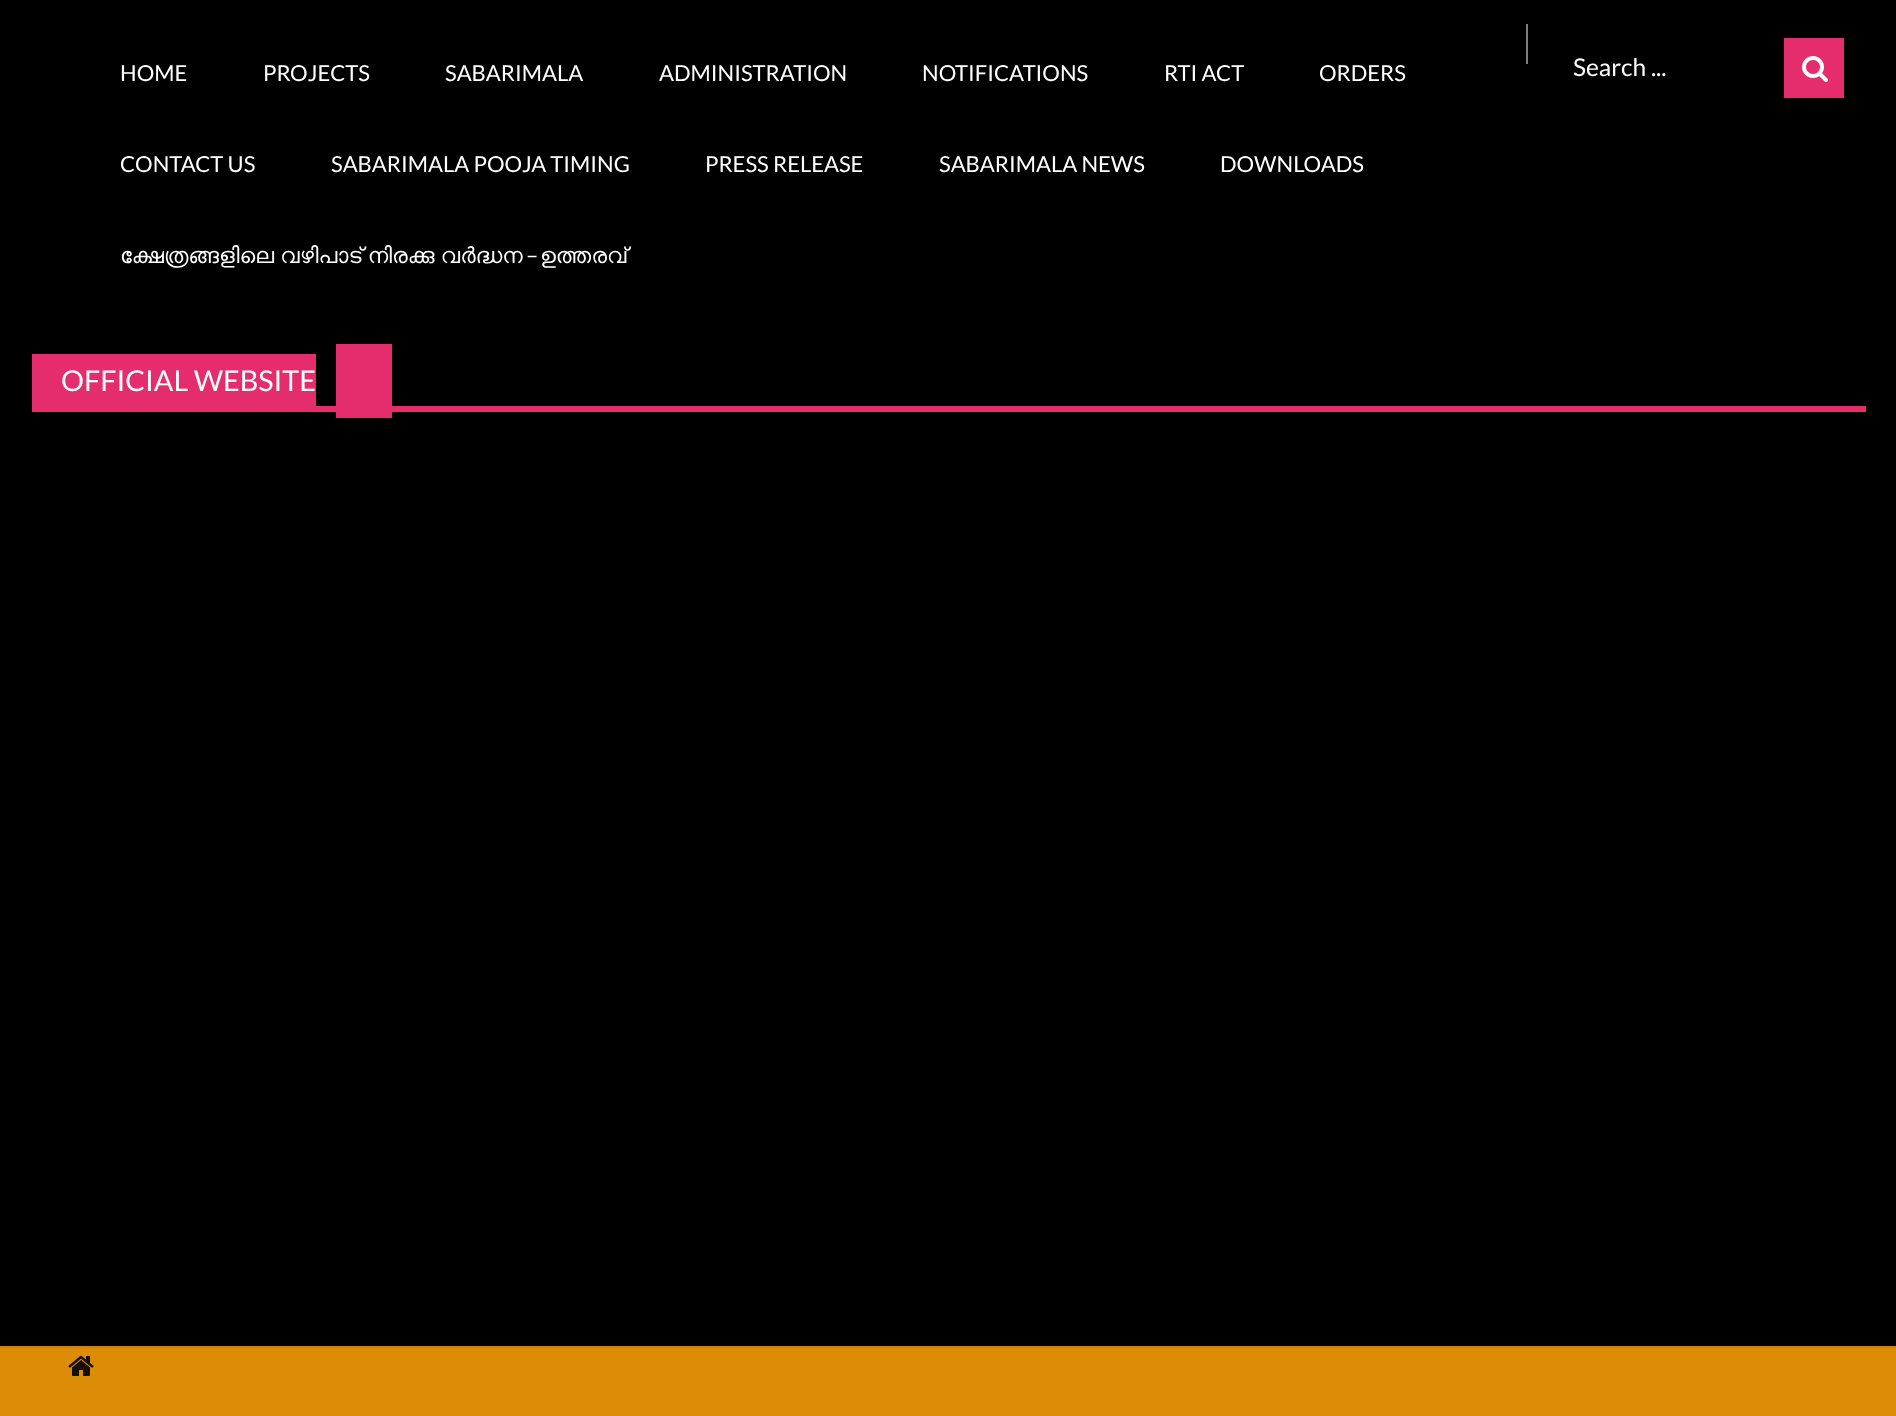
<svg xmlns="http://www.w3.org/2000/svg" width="1896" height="1416">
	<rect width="100%" height="100%" fill="#000000" />
	<rect x="1526" y="24" width="2" height="40" fill="#808080" />
	<g font-family="Lato" font-size="22" fill="#FFFFFF">
		<text x="120" y="81">HOME</text>
		<text x="263" y="81">PROJECTS</text>
		<text x="445" y="81">SABARIMALA</text>
		<text x="659" y="81">ADMINISTRATION</text>
		<text x="922" y="81">NOTIFICATIONS</text>
		<text x="1164" y="81">RTI ACT</text>
		<text x="1319" y="81">ORDERS</text>
		<text x="120" y="172">CONTACT US</text>
		<text x="331" y="172">SABARIMALA POOJA TIMING</text>
		<text x="705" y="172">PRESS RELEASE</text>
		<text x="939" y="172">SABARIMALA NEWS</text>
		<text x="1220" y="172">DOWNLOADS</text>
	</g>
	<text x="120" y="263" word-spacing="-2.5" font-family="FreeSans" font-size="22" fill="#FFFFFF">ക്ഷേത്രങ്ങളിലെ വഴിപാട് നിരക്കു വർദ്ധന</text>
	<text x="526" y="263" font-family="Lato" font-size="22" fill="#FFFFFF">–</text>
	<text x="540" y="263" font-family="FreeSans" font-size="22" fill="#FFFFFF">ഉത്തരവ്</text>
	<rect x="1784" y="38" width="60" height="60" fill="#E52D6D" />
	<text x="1573" y="76" font-family="Lato" font-size="24.5" fill="#FFFFFF">Search ...</text>
	<image x="1802" y="56" width="26" height="26" href="assets/img1.png" />
	<rect x="32" y="354" width="284" height="52" fill="#E52D6D" />
	<text x="61" y="391" font-family="Lato" font-size="28.75" fill="#FFFFFF">OFFICIAL WEBSITE</text>
	<rect x="32" y="406" width="1834" height="6" fill="#E52D6D" />
	<rect x="336" y="344" width="56" height="74" fill="#E52D6D" />
	<rect x="0" y="1348" width="1896" height="68" fill="#DD8C08" />
	<rect x="0" y="1346" width="1896" height="2" fill="#CC8207" />
	<image x="68" y="1356" width="26" height="20" href="assets/img2.png" />
</svg>
